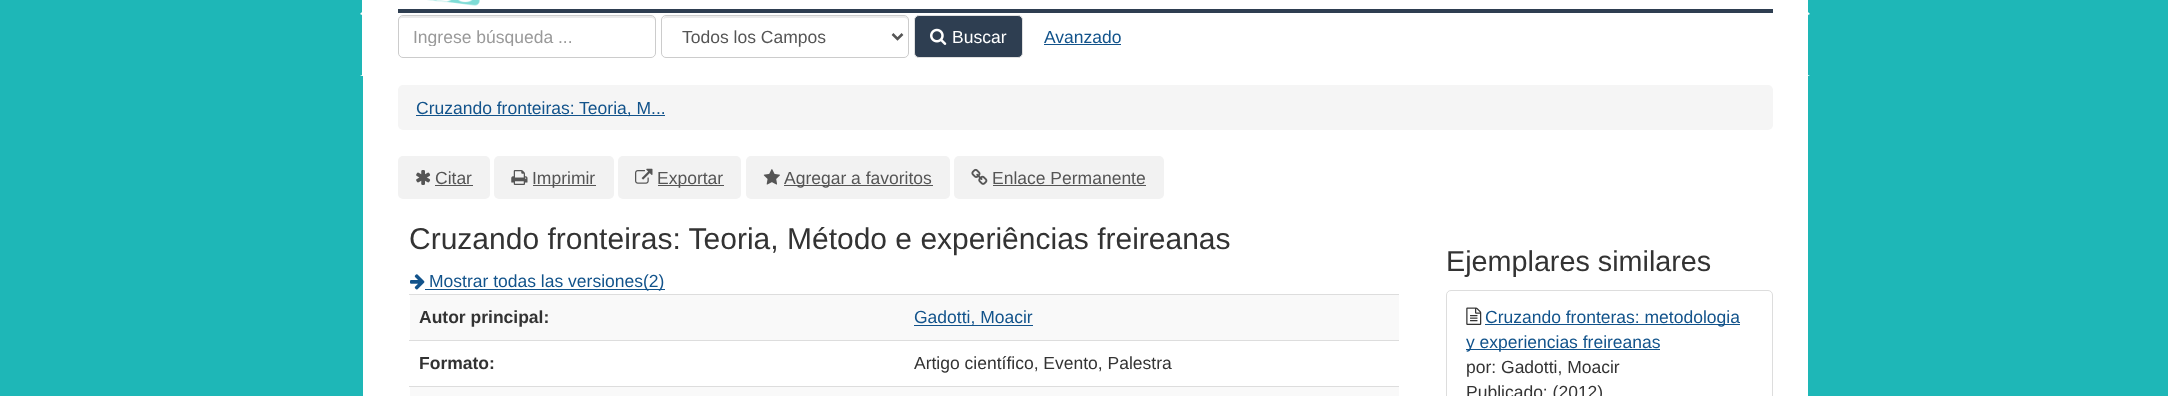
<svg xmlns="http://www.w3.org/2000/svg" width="2168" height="396">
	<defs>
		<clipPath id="clip1"><rect x="414" y="26" width="226" height="20" /></clipPath>
	</defs>
	<rect width="100%" height="100%" fill="#1EB7B7" />
	<rect x="360" y="0" width="1450" height="76" fill="#FFFFFF" />
	<path d="M1810-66V14L1808 12V-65Z" fill="#1EB7B7" />
	<path d="M360 14V-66L362-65V12Z" fill="#1EB7B7" />
	<image x="427" y="0" width="53" height="6" href="assets/img1.png" />
	<rect x="398" y="9" width="1375" height="4" fill="#2E3E51" />
	<path d="M1810 14V76L1808 75V15Z" fill="#1EB7B7" />
	<path d="M360 76V14L362 15V75Z" fill="#1EB7B7" />
	<path d="M402 18H651C653 18 655 19 655 21V20C655 18 653 16 651 16H403C401 16 399 18 399 20V21C399 19 400 18 402 18Z" fill="#ECECEC" />
	<rect x="398.5" y="15.5" width="257" height="42" rx="4.5" fill="none" stroke="#CCCCCC" />
	<g clip-path="url(#clip1)">
		<text x="413" y="43" font-family="Liberation Sans" font-size="17.5" fill="#999999">Ingrese búsqueda ...</text>
	</g>
	<path d="M666 18H904C906 18 908 19 908 21V20C908 18 906 16 904 16H667C665 16 664 17 663 19Z" fill="#ECECEC" />
	<rect x="661.5" y="15.5" width="247" height="42" rx="4.5" fill="none" stroke="#CCCCCC" />
	<path d="M892.5 34L897.5 39L902.5 34" fill="none" stroke="#555555" stroke-width="2.5" />
	<text x="682" y="43" font-family="Liberation Sans" font-size="17.5" fill="#555555">Todos los Campos</text>
	<rect x="914.5" y="15.5" width="108" height="42" rx="4.5" fill="#2E3E51" stroke="#E0E0E0" />
	<image x="930" y="28" width="17" height="17" href="assets/img2.png" />
	<text x="952" y="43" font-family="Liberation Sans" font-size="17.5" fill="#FFFFFF">Buscar</text>
	<text x="1044" y="43" font-family="Liberation Sans" font-size="17.5" fill="#12538B">Avanzado</text>
	<rect x="1044" y="44" width="77" height="1" fill="#12538B" />
	<rect x="363" y="76" width="1445" height="320" fill="#FFFFFF" />
	<rect x="398" y="85" width="1375" height="45" rx="5" fill="#F5F5F5" />
	<rect x="416" y="115" width="249" height="1" fill="#12538B" />
	<text x="416" y="114" font-family="Liberation Sans" font-size="17.5" fill="#12538B">Cruzando fronteiras: Teoria, M...</text>
	<rect x="398" y="156" width="92" height="43" rx="5" fill="#F2F2F2" />
	<image x="416" y="170" width="15" height="15" href="assets/img3.png" />
	<text x="435" y="184" font-family="Liberation Sans" font-size="17.5" fill="#555555">Citar</text>
	<rect x="435" y="185" width="38" height="1" fill="#555555" />
	<rect x="494" y="156" width="120" height="43" rx="5" fill="#F2F2F2" />
	<image x="511" y="170" width="17" height="15" href="assets/img4.png" />
	<rect x="533" y="185" width="63" height="1" fill="#555555" />
	<text x="532" y="184" font-family="Liberation Sans" font-size="17.5" fill="#555555">Imprimir</text>
	<rect x="618" y="156" width="123" height="43" rx="5" fill="#F2F2F2" />
	<image x="635" y="168" width="18" height="16" href="assets/img5.png" />
	<rect x="658" y="185" width="66" height="1" fill="#555555" />
	<text x="657" y="184" font-family="Liberation Sans" font-size="17.5" fill="#555555">Exportar</text>
	<rect x="746" y="156" width="204" height="43" rx="5" fill="#F2F2F2" />
	<image x="763" y="169" width="17" height="16" href="assets/img6.png" />
	<rect x="784" y="185" width="149" height="1" fill="#555555" />
	<text x="784" y="184" font-family="Liberation Sans" font-size="17.5" fill="#555555">Agregar a favoritos</text>
	<rect x="954" y="156" width="210" height="43" rx="5" fill="#F2F2F2" />
	<image x="971" y="168" width="17" height="17" href="assets/img7.png" />
	<text x="992" y="184" font-family="Liberation Sans" font-size="17.5" fill="#555555">Enlace Permanente</text>
	<rect x="993" y="185" width="153" height="1" fill="#555555" />
	<text x="409" y="249" font-family="Liberation Sans" font-size="30" fill="#333333">Cruzando fronteiras: Teoria, Método e experiências freireanas</text>
	<image x="410" y="274" width="15" height="16" href="assets/img8.png" />
	<rect x="425" y="289" width="240" height="1" fill="#12538B" />
	<text x="429" y="287" font-family="Liberation Sans" font-size="17.5" fill="#12538B">Mostrar todas las versiones(2)</text>
	<rect x="410" y="295" width="989" height="45" fill="#F9F9F9" />
	<text x="419" y="323" font-family="Liberation Sans" font-size="17.5" font-weight="700" fill="#333333">Autor principal:</text>
	<rect x="409" y="294" width="990" height="1" fill="#DDDDDD" />
	<rect x="914" y="325" width="119" height="1" fill="#12538B" />
	<text x="914" y="323" font-family="Liberation Sans" font-size="17.5" fill="#12538B">Gadotti, Moacir</text>
	<text x="419" y="369" font-family="Liberation Sans" font-size="17.5" font-weight="700" fill="#333333">Formato:</text>
	<rect x="409" y="340" width="990" height="1" fill="#DDDDDD" />
	<text x="914" y="369" font-family="Liberation Sans" font-size="17.5" fill="#333333">Artigo científico, Evento, Palestra</text>
	<rect x="410" y="387" width="989" height="9" fill="#F9F9F9" />
	<rect x="409" y="386" width="990" height="1" fill="#DDDDDD" />
	<text x="1446" y="271" font-family="Liberation Sans" font-size="28.75" fill="#333333">Ejemplares similares</text>
	<path d="M1451 290.5H1768C1770.5 290.5 1772.5 292.5 1772.5 295V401.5H1446.5V295C1446.5 292.5 1448.5 290.5 1451 290.5Z" fill="none" stroke="#DDDDDD" />
	<image x="1466" y="307" width="16" height="18" href="assets/img9.png" />
	<rect x="1485" y="324" width="255" height="1" fill="#12538B" />
	<text x="1485" y="323" font-family="Liberation Sans" font-size="17.5" fill="#12538B">Cruzando fronteras: metodologia</text>
	<rect x="1466" y="349" width="194" height="1" fill="#12538B" />
	<text x="1466" y="348" font-family="Liberation Sans" font-size="17.5" fill="#12538B">y experiencias freireanas</text>
	<g font-family="Liberation Sans" font-size="17.5" fill="#333333">
		<text x="1466" y="373">por: Gadotti, Moacir</text>
		<text x="1466" y="398">Publicado: (2012)</text>
	</g>
</svg>
